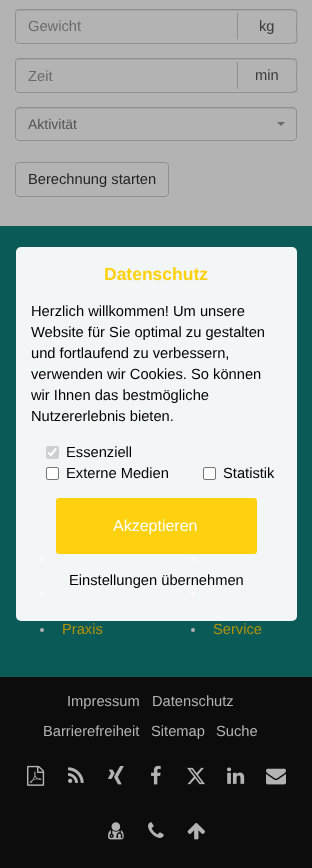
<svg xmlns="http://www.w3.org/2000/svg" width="312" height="868">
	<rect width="100%" height="100%" fill="#B3B3B3" />
	<path d="M19 11H237V10H19C17 10 16 11 16 13V14C16 12 17 11 19 11Z" fill="#A5A5A5" />
	<path d="M19 9H237V44H19C17 44 15 42 15 40V13C15 11 17 9 19 9ZM19 10H237V43H19C17 43 16 42 16 40V13C16 11 17 10 19 10Z" fill="#8F8F8F" fill-rule="evenodd" />
	<text x="28" y="31" font-family="Liberation Sans" font-size="14.7" fill="#6B6B6B">Gewicht</text>
	<path d="M237 11H293C294 12 296 12 296 13C296 11 295 10 293 10H237Z" fill="#A5A5A5" />
	<path d="M237 9H284C301 9 297 9 297 26C297 44 301 44 284 44H237ZM237 10H284C300 10 296 10 296 26C296 43 300 43 284 43H237Z" fill="#8F8F8F" fill-rule="evenodd" />
	<rect x="237" y="13" width="1" height="26" fill="#8F8F8F" />
	<text x="259" y="31" font-family="Liberation Sans" font-size="14.7" fill="#3B3B3B">kg</text>
	<path d="M19 60H237V59H19C17 59 16 60 16 62V63C16 61 17 60 19 60Z" fill="#A5A5A5" />
	<path d="M19 58H237V93H19C17 93 15 91 15 89V62C15 60 17 58 19 58ZM19 59H237V92H19C17 92 16 91 16 89V62C16 60 17 59 19 59Z" fill="#8F8F8F" fill-rule="evenodd" />
	<text x="28" y="81" font-family="Liberation Sans" font-size="14.7" fill="#6B6B6B">Zeit</text>
	<path d="M237 60H293C294 61 296 61 296 62C296 60 295 59 293 59H237Z" fill="#A5A5A5" />
	<path d="M237 58H284C301 58 297 58 297 76C297 93 301 93 284 93H237ZM237 59H284C300 59 296 59 296 76C296 92 300 92 284 92H237Z" fill="#8F8F8F" fill-rule="evenodd" />
	<rect x="237" y="62" width="1" height="27" fill="#8F8F8F" />
	<text x="255" y="80" font-family="Liberation Sans" font-size="14.7" fill="#3B3B3B">min</text>
	<path d="M19 109H293C295 109 296 110 296 112V111C296 109 295 108 293 108H19C17 108 16 109 16 111V112C16 110 17 109 19 109Z" fill="#A5A5A5" />
	<rect x="15.5" y="107.5" width="281" height="33" rx="3.5" fill="none" stroke="#8F8F8F" />
	<text x="28" y="129" font-family="Liberation Sans" font-size="14" fill="#535353">Aktivität</text>
	<path d="M277 122H285L281 126Z" fill="#6B6B6B" />
	<rect x="15.5" y="162.5" width="153" height="34" rx="3.5" fill="none" stroke="#8F8F8F" />
	<text x="28" y="184" font-family="Liberation Sans" font-size="14.7" fill="#242424">Berechnung starten</text>
	<rect x="0" y="226" width="312" height="451" fill="#0A5A58" />
	<circle cx="42" cy="559" r="2" fill="#B3B3B3" />
	<circle cx="193" cy="559" r="2" fill="#B3B3B3" />
	<circle cx="42" cy="594" r="2" fill="#B3B3B3" />
	<circle cx="193" cy="594" r="2" fill="#B3B3B3" />
	<circle cx="42" cy="630" r="2" fill="#B3B3B3" />
	<text x="62" y="634" font-family="Liberation Sans" font-size="14.7" fill="#B2920B">Praxis</text>
	<circle cx="193" cy="630" r="2" fill="#B3B3B3" />
	<text x="213" y="634" font-family="Liberation Sans" font-size="14.7" fill="#B2920B">Service</text>
	<rect x="0" y="677" width="312" height="191" fill="#0C0C0C" />
	<g font-family="Liberation Sans" font-size="14.7" fill="#B3B3B3">
		<text x="67" y="706">Impressum</text>
		<text x="152" y="706">Datenschutz</text>
		<text x="43" y="736">Barrierefreiheit</text>
		<text x="151" y="736">Sitemap</text>
		<text x="216" y="736">Suche</text>
	</g>
	<image x="27" y="765" width="18" height="21" href="assets/img1.png" />
	<image x="68" y="767" width="16" height="16" href="assets/img2.png" />
	<image x="108" y="766" width="16" height="19" href="assets/img3.png" />
	<image x="151" y="765" width="10" height="20" href="assets/img4.png" />
	<image x="187" y="767" width="18" height="18" href="assets/img5.png" />
	<image x="227" y="767" width="18" height="17" href="assets/img6.png" />
	<image x="266" y="768" width="20" height="17" href="assets/img7.png" />
	<image x="108" y="822" width="16" height="18" href="assets/img8.png" />
	<image x="148" y="822" width="16" height="16" href="assets/img9.png" />
	<image x="187" y="823" width="18" height="17" href="assets/img10.png" />
	<rect x="16" y="247" width="281" height="374" rx="5" fill="#FFFFFF" fill-opacity="0.95" />
	<text x="104" y="280" font-family="Liberation Sans" font-size="17.5" font-weight="700" fill="#FED10F">Datenschutz</text>
	<g font-family="Liberation Sans" font-size="14.7" fill="#000000">
		<text x="31" y="316">Herzlich willkommen! Um unsere</text>
		<text x="31" y="337">Website für Sie optimal zu gestalten</text>
		<text x="31" y="358">und fortlaufend zu verbessern,</text>
		<text x="31" y="379">verwenden wir Cookies. So können</text>
		<text x="31" y="400">wir Ihnen das bestmögliche</text>
		<text x="31" y="421">Nutzererlebnis bieten.</text>
	</g>
	<rect x="46" y="446" width="13" height="13" rx="2" fill="#CDD0D0" />
	<path d="M48 452.5L51 455L56 448.5" fill="none" stroke="#FFFFFF" stroke-width="2.1" />
	<text x="66" y="457" font-family="Liberation Sans" font-size="14.7" fill="#000000">Essenziell</text>
	<rect x="46.5" y="467.5" width="12" height="12" rx="1.5" fill="#FFFFFF" stroke="#767676" />
	<text x="66" y="478" font-family="Liberation Sans" font-size="14.7" fill="#000000">Externe Medien</text>
	<rect x="203.5" y="467.5" width="12" height="12" rx="1.5" fill="#FFFFFF" stroke="#767676" />
	<text x="223" y="478" font-family="Liberation Sans" font-size="14.7" fill="#000000">Statistik</text>
	<rect x="56" y="498" width="201" height="56" rx="3" fill="#FED10F" />
	<text x="113" y="531" font-family="Liberation Sans" font-size="16" fill="#FFFFFF">Akzeptieren</text>
	<text x="69" y="585" font-family="Liberation Sans" font-size="14.7" fill="#000000">Einstellungen übernehmen</text>
</svg>
